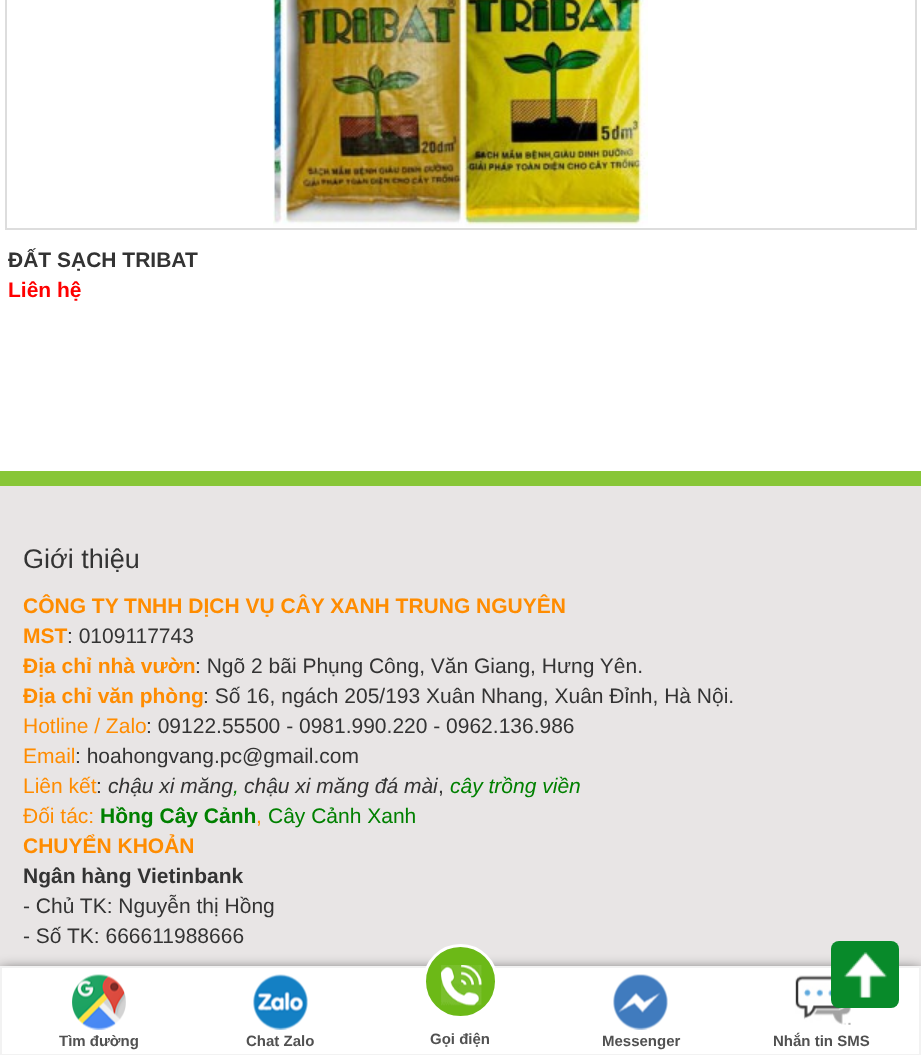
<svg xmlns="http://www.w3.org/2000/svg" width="921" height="1055">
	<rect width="100%" height="100%" fill="#FFFFFF" />
	<rect x="6" y="-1" width="910" height="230" fill="none" stroke="#DDDDDD" stroke-width="2" />
	<image x="273" y="0" width="375" height="227" href="assets/img1.png" />
	<text x="8" y="267" font-family="Liberation Sans" font-size="21" font-weight="700" fill="#333333">ĐẤT SẠCH TRIBAT</text>
	<text x="8" y="297" font-family="Liberation Sans" font-size="21" font-weight="700" fill="#FF0000">Liên hệ</text>
	<rect x="0" y="486" width="921" height="480" fill="#E8E5E5" />
	<rect x="0" y="471" width="921" height="15" fill="#88C637" />
	<text x="23" y="568" font-family="Liberation Sans" font-size="27" fill="#333333">Giới thiệu</text>
	<g font-family="Liberation Sans" font-size="21" font-weight="700" fill="#FF8C00">
		<text x="23" y="613">CÔNG TY TNHH DỊCH VỤ CÂY XANH TRUNG NGUYÊN</text>
		<text x="23" y="643">MST</text>
	</g>
	<text x="67" y="643" font-family="Liberation Sans" font-size="21" fill="#333333">: 0109117743</text>
	<text x="23" y="673" font-family="Liberation Sans" font-size="21" font-weight="700" fill="#FF8C00">Địa chỉ nhà vườn</text>
	<text x="195" y="673" font-family="Liberation Sans" font-size="21" fill="#333333">: Ngõ 2 bãi Phụng Công, Văn Giang, Hưng Yên.</text>
	<text x="23" y="703" font-family="Liberation Sans" font-size="21" font-weight="700" fill="#FF8C00">Địa chỉ văn phòng</text>
	<text x="203" y="703" font-family="Liberation Sans" font-size="21" fill="#333333">: Số 16, ngách 205/193 Xuân Nhang, Xuân Đỉnh, Hà Nội.</text>
	<text x="23" y="733" font-family="Liberation Sans" font-size="21" fill="#FF8C00">Hotline / Zalo</text>
	<text x="146" y="733" font-family="Liberation Sans" font-size="21" fill="#333333">: 09122.55500 - 0981.990.220 - 0962.136.986</text>
	<text x="23" y="763" font-family="Liberation Sans" font-size="21" fill="#FF8C00">Email</text>
	<text x="75" y="763" font-family="Liberation Sans" font-size="21" fill="#333333">: hoahongvang.pc@gmail.com</text>
	<text x="23" y="793" font-family="Liberation Sans" font-size="21" fill="#FF8C00">Liên kết</text>
	<text x="96" y="793" font-family="Liberation Sans" font-size="21" fill="#333333">:</text>
	<text x="108" y="793" font-family="Liberation Sans" font-size="21" font-style="italic" fill="#333333">chậu xi măng</text>
	<text x="233" y="793" font-family="Liberation Sans" font-size="21" font-style="italic" fill="#008000">,</text>
	<text x="244" y="793" font-family="Liberation Sans" font-size="21" font-style="italic" fill="#333333">chậu xi măng đá mài</text>
	<text x="438" y="793" font-family="Liberation Sans" font-size="21" fill="#333333">,</text>
	<text x="450" y="793" font-family="Liberation Sans" font-size="21" font-style="italic" fill="#008000">cây trồng viền</text>
	<text x="23" y="823" font-family="Liberation Sans" font-size="21" fill="#FF8C00">Đối tác:</text>
	<text x="100" y="823" font-family="Liberation Sans" font-size="21" font-weight="700" fill="#008000">Hồng Cây Cảnh</text>
	<text x="256" y="823" font-family="Liberation Sans" font-size="21" fill="#FF8C00">,</text>
	<text x="268" y="823" font-family="Liberation Sans" font-size="21" fill="#008000">Cây Cảnh Xanh</text>
	<text x="23" y="853" font-family="Liberation Sans" font-size="21" font-weight="700" fill="#FF8C00">CHUYỂN KHOẢN</text>
	<text x="23" y="883" font-family="Liberation Sans" font-size="21" font-weight="700" fill="#333333">Ngân hàng Vietinbank</text>
	<g font-family="Liberation Sans" font-size="21" fill="#333333">
		<text x="23" y="913">- Chủ TK: Nguyễn thị Hồng</text>
		<text x="23" y="943">- Số TK: 666611988666</text>
	</g>
	<rect x="0" y="972" width="921" height="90" fill="#000000" filter="blur(7.5px)" />
	<rect x="1" y="967" width="919" height="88" fill="#FFFFFF" stroke="#F2F2F2" stroke-width="2" />
	<image x="795" y="975" width="56" height="50" href="assets/img7.png" />
	<rect x="831" y="941" width="68" height="67" rx="8" fill="#088A2A" />
	<image x="844" y="952" width="43" height="46" href="assets/img2.png" />
	<image x="72" y="974" width="54" height="56" href="assets/img3.png" />
	<text x="59" y="1046" font-family="Liberation Sans" font-size="15" font-weight="700" fill="#515151">Tìm đường</text>
	<image x="253" y="974" width="55" height="56" href="assets/img4.png" />
	<text x="246" y="1046" font-family="Liberation Sans" font-size="15" font-weight="700" fill="#515151">Chat Zalo</text>
	<circle cx="460.5" cy="981.5" r="36" fill="#6CB917" stroke="#FFFFFF" stroke-width="3" />
	<image x="441" y="965" width="41" height="41" href="assets/img5.png" />
	<text x="430" y="1044" font-family="Liberation Sans" font-size="15" font-weight="700" fill="#515151">Gọi điện</text>
	<image x="613" y="974" width="55" height="56" href="assets/img6.png" />
	<g font-family="Liberation Sans" font-size="15" font-weight="700" fill="#515151">
		<text x="602" y="1046">Messenger</text>
		<text x="773" y="1046">Nhắn tin SMS</text>
	</g>
</svg>
